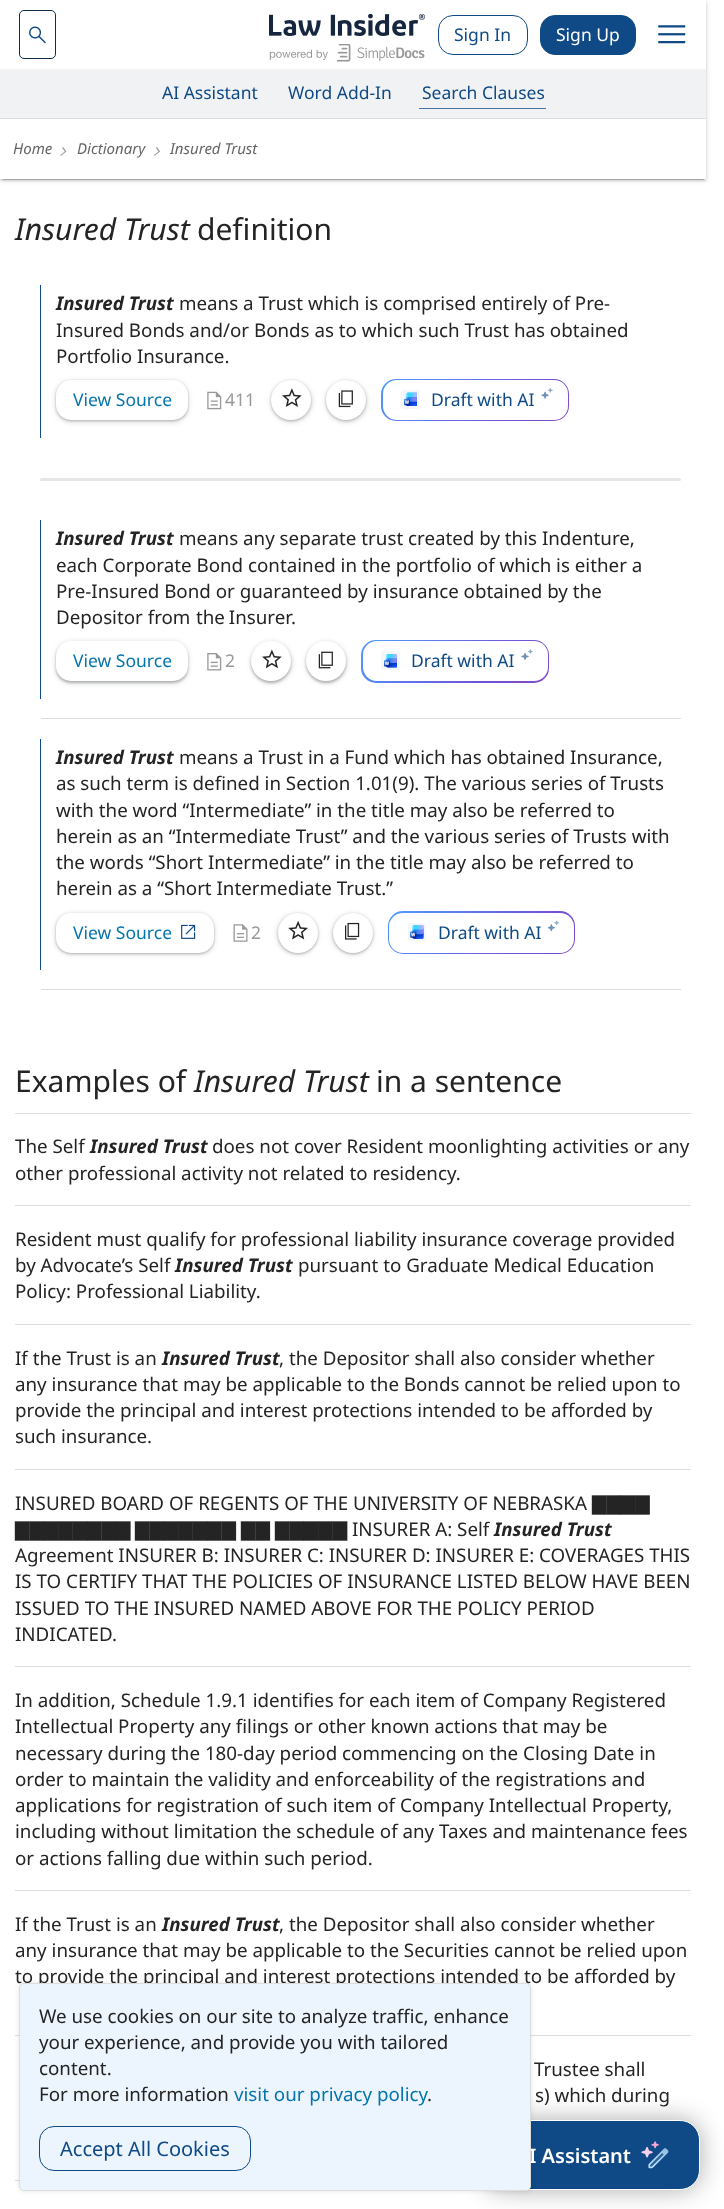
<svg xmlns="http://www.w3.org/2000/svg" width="724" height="2209">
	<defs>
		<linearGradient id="g1" gradientUnits="userSpaceOnUse" x1="671" y1="89" x2="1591" y2="1009"><stop offset="0" stop-color="#4D9DFF" /><stop offset="0.09" stop-color="#7251D7" /><stop offset="0.2" stop-color="#9E3CA8" /><stop offset="0.29" stop-color="#B01983" /><stop offset="0.36" stop-color="#9E3CA8" /><stop offset="0.44" stop-color="#7251D7" /><stop offset="0.55" stop-color="#4D9DFF" /><stop offset="0.65" stop-color="#7251D7" /><stop offset="0.76" stop-color="#B01983" /><stop offset="0.84" stop-color="#9E3CA8" /><stop offset="0.96" stop-color="#7251D7" /></linearGradient>
		<linearGradient id="g2" gradientUnits="userSpaceOnUse" x1="651" y1="350" x2="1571" y2="1270"><stop offset="0" stop-color="#4D9DFF" /><stop offset="0.09" stop-color="#7251D7" /><stop offset="0.2" stop-color="#9E3CA8" /><stop offset="0.29" stop-color="#B01983" /><stop offset="0.36" stop-color="#9E3CA8" /><stop offset="0.44" stop-color="#7251D7" /><stop offset="0.55" stop-color="#4D9DFF" /><stop offset="0.65" stop-color="#7251D7" /><stop offset="0.76" stop-color="#B01983" /><stop offset="0.84" stop-color="#9E3CA8" /><stop offset="0.96" stop-color="#7251D7" /></linearGradient>
		<linearGradient id="g3" gradientUnits="userSpaceOnUse" x1="678" y1="621" x2="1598" y2="1541"><stop offset="0" stop-color="#4D9DFF" /><stop offset="0.09" stop-color="#7251D7" /><stop offset="0.2" stop-color="#9E3CA8" /><stop offset="0.29" stop-color="#B01983" /><stop offset="0.36" stop-color="#9E3CA8" /><stop offset="0.44" stop-color="#7251D7" /><stop offset="0.55" stop-color="#4D9DFF" /><stop offset="0.65" stop-color="#7251D7" /><stop offset="0.76" stop-color="#B01983" /><stop offset="0.84" stop-color="#9E3CA8" /><stop offset="0.96" stop-color="#7251D7" /></linearGradient>
	</defs>
	<rect width="100%" height="100%" fill="#FFFFFF" />
	<rect x="0" y="1" width="706" height="179" fill="#000000" fill-opacity="0.12" filter="blur(3px)" />
	<rect x="0" y="3" width="706" height="178" fill="#000000" fill-opacity="0.14" filter="blur(1px)" />
	<rect x="3" y="6" width="701" height="174" fill="#000000" fill-opacity="0.2" filter="blur(0.5px)" />
	<rect x="0" y="0" width="706" height="179" fill="#FFFFFF" />
	<rect x="19.5" y="10.5" width="36" height="48" rx="4.5" fill="none" stroke="#0F2E4B" />
	<image x="29" y="26" width="17" height="18" href="assets/img1.png" />
	<image x="269" y="14" width="156" height="22" href="assets/img2.png" />
	<image x="269" y="44" width="156" height="18" href="assets/img3.png" />
	<rect x="438.5" y="15.5" width="89" height="39" rx="14.5" fill="none" stroke="#0F4A86" />
	<text x="454" y="41" font-family="Noto Sans" font-size="17.5" fill="#0F4A86">Sign In</text>
	<rect x="540.5" y="15.5" width="95" height="39" rx="14.5" fill="#0F4A86" stroke="#0F4A86" />
	<text x="556" y="41" font-family="Noto Sans" font-size="17.5" fill="#FFFFFF">Sign Up</text>
	<image x="658" y="25" width="28" height="19" href="assets/img4.png" />
	<rect x="0" y="69" width="706" height="49" fill="#F1F2F3" />
	<g font-family="Noto Sans" font-size="17.5" fill="#0F4A86">
		<text x="162" y="99">AI Assistant</text>
		<text x="288" y="99">Word Add-In</text>
	</g>
	<rect x="419" y="108" width="127" height="1" fill="#4874A1" />
	<text x="422" y="99" font-family="Noto Sans" font-size="17.5" fill="#0F4A86">Search Clauses</text>
	<rect x="0" y="118" width="706" height="1" fill="#DDDDDD" />
	<text x="13" y="154" font-family="Noto Sans" font-size="15" font-style="italic" fill="#666666">Home</text>
	<image x="60" y="147" width="7" height="9" href="assets/img5.png" />
	<text x="77" y="154" font-family="Noto Sans" font-size="15" font-style="italic" fill="#666666">Dictionary</text>
	<image x="154" y="147" width="6" height="9" href="assets/img6.png" />
	<text x="170" y="154" font-family="Noto Sans" font-size="15" font-style="italic" fill="#666666">Insured Trust</text>
	<rect x="15" y="2035" width="676" height="1" fill="#DDDDDD" />
	<rect x="15" y="2180" width="4" height="1" fill="#DDDDDD" />
	<rect x="484" y="2120" width="216" height="70" rx="20" fill="#000000" fill-opacity="0.33" filter="blur(12.5px)" />
	<rect x="484.5" y="2120.5" width="215" height="69" rx="19.5" fill="#0F4A86" stroke="#FFFFFF" />
	<rect x="19" y="1983" width="512" height="208" rx="5" fill="#000000" fill-opacity="0.1" filter="blur(2.5px)" />
	<text x="15" y="1983" font-family="Noto Sans" font-size="18.75" fill="#242424">to provide the principal and interest protections intended to be afforded by</text>
	<text x="529" y="2163" font-family="Noto Sans" font-size="20" font-weight="600" fill="#FFFFFF">I Assistant</text>
	<rect x="19.5" y="1983.5" width="511" height="207" rx="4.5" fill="#ECF4FD" stroke="#DDDDDD" />
	<g font-family="Noto Sans" font-size="18.75" fill="#242424">
		<text x="39" y="2023">We use cookies on our site to analyze traffic, enhance</text>
		<text x="39" y="2049">your experience, and provide you with tailored</text>
		<text x="39" y="2075">content.</text>
		<text x="39" y="2101">For more information</text>
	</g>
	<text x="234" y="2101" font-family="Noto Sans" font-size="18.75" fill="#0675AC">visit our privacy policy</text>
	<text x="427" y="2101" font-family="Noto Sans" font-size="18.75" fill="#242424">.</text>
	<rect x="39.5" y="2126.5" width="211" height="44" rx="14.5" fill="none" stroke="#0F4A86" />
	<text x="60" y="2156" font-family="Noto Sans" font-size="20" fill="#0F4A86">Accept All Cookies</text>
	<text x="15" y="240" font-family="Noto Sans" font-size="30" font-style="italic" fill="#242424">Insured Trust</text>
	<text x="197" y="240" font-family="Noto Sans" font-size="30" fill="#242424">definition</text>
	<rect x="40" y="285" width="1" height="153" fill="#0F4A86" />
	<text x="56" y="310" font-family="Noto Sans" font-size="18.75" font-weight="700" font-style="italic" fill="#242424">Insured Trust</text>
	<g font-family="Noto Sans" font-size="18.75" fill="#242424">
		<text x="179" y="310">means a Trust which is comprised entirely of Pre-</text>
		<text x="56" y="337">Insured Bonds and/or Bonds as to which such Trust has obtained</text>
		<text x="56" y="363">Portfolio Insurance.</text>
	</g>
	<rect x="55" y="380" width="134" height="43" rx="16" fill="#3C4043" fill-opacity="0.15" filter="blur(2px)" />
	<rect x="56" y="381" width="132" height="40" rx="15" fill="#3C4043" fill-opacity="0.3" filter="blur(1px)" />
	<rect x="56" y="380" width="132" height="40" rx="15" fill="#FFFFFF" />
	<text x="73" y="406" font-family="Noto Sans" font-size="17.5" fill="#0675AC">View Source</text>
	<image x="207" y="391" width="15" height="19" href="assets/img7.png" />
	<text x="225" y="406" font-family="Noto Sans" font-size="17.5" fill="#999999">411</text>
	<rect x="270" y="380" width="43" height="43" rx="21.5" fill="#3C4043" fill-opacity="0.15" filter="blur(2px)" />
	<rect x="271" y="381" width="40" height="40" rx="20" fill="#3C4043" fill-opacity="0.3" filter="blur(1px)" />
	<circle cx="291" cy="400" r="20" fill="#FFFFFF" />
	<image x="282" y="388" width="20" height="19" href="assets/img8.png" />
	<rect x="325" y="380" width="43" height="43" rx="21.5" fill="#3C4043" fill-opacity="0.15" filter="blur(2px)" />
	<rect x="326" y="381" width="40" height="40" rx="20" fill="#3C4043" fill-opacity="0.3" filter="blur(1px)" />
	<circle cx="346" cy="400" r="20" fill="#FFFFFF" />
	<image x="338" y="390" width="15" height="18" href="assets/img9.png" />
	<rect x="381" y="379" width="188" height="42" rx="15" fill="url(#g1)" />
	<rect x="383" y="380" width="185" height="40" rx="14" fill="#FFFFFF" />
	<image x="401" y="390" width="19" height="19" href="assets/img10.png" />
	<text x="431" y="406" font-family="Noto Sans" font-size="17.5" fill="#0F4A86">Draft with AI</text>
	<image x="541" y="388" width="12" height="11" href="assets/img11.png" />
	<rect x="40" y="478" width="641" height="3" rx="1.5" fill="#E6E6E6" />
	<rect x="40" y="520" width="1" height="179" fill="#0F4A86" />
	<text x="56" y="545" font-family="Noto Sans" font-size="18.75" font-weight="700" font-style="italic" fill="#242424">Insured Trust</text>
	<g font-family="Noto Sans" font-size="18.75" fill="#242424">
		<text x="179" y="545">means any separate trust created by this Indenture,</text>
		<text x="56" y="572">each Corporate Bond contained in the portfolio of which is either a</text>
		<text x="56" y="598">Pre-Insured Bond or guaranteed by insurance obtained by the</text>
		<text x="56" y="624">Depositor from</text>
		<text x="196" y="624" word-spacing="-1">the Insurer</text>
		<text x="291" y="624">.</text>
	</g>
	<rect x="55" y="641" width="134" height="43" rx="16" fill="#3C4043" fill-opacity="0.15" filter="blur(2px)" />
	<rect x="56" y="643" width="132" height="40" rx="15" fill="#3C4043" fill-opacity="0.3" filter="blur(1px)" />
	<rect x="56" y="641" width="132" height="40" rx="15" fill="#FFFFFF" />
	<text x="73" y="667" font-family="Noto Sans" font-size="17.5" fill="#0675AC">View Source</text>
	<image x="207" y="653" width="15" height="18" href="assets/img12.png" />
	<text x="225" y="667" font-family="Noto Sans" font-size="17.5" fill="#999999">2</text>
	<rect x="250" y="641" width="43" height="43" rx="21.5" fill="#3C4043" fill-opacity="0.15" filter="blur(2px)" />
	<rect x="251" y="643" width="40" height="40" rx="20" fill="#3C4043" fill-opacity="0.3" filter="blur(1px)" />
	<circle cx="271" cy="661" r="20" fill="#FFFFFF" />
	<image x="262" y="649" width="20" height="20" href="assets/img13.png" />
	<rect x="305" y="641" width="43" height="43" rx="21.5" fill="#3C4043" fill-opacity="0.15" filter="blur(2px)" />
	<rect x="306" y="643" width="40" height="40" rx="20" fill="#3C4043" fill-opacity="0.3" filter="blur(1px)" />
	<circle cx="326" cy="661" r="20" fill="#FFFFFF" />
	<image x="318" y="651" width="15" height="18" href="assets/img14.png" />
	<rect x="361" y="640" width="188" height="43" rx="15" fill="url(#g2)" />
	<rect x="363" y="641" width="185" height="40" rx="14" fill="#FFFFFF" />
	<image x="381" y="651" width="19" height="19" href="assets/img15.png" />
	<text x="411" y="667" font-family="Noto Sans" font-size="17.5" fill="#0F4A86">Draft with AI</text>
	<image x="521" y="649" width="12" height="11" href="assets/img16.png" />
	<rect x="41" y="718" width="640" height="1" fill="#DDDDDD" />
	<rect x="40" y="739" width="1" height="231" fill="#0F4A86" />
	<text x="56" y="764" font-family="Noto Sans" font-size="18.75" font-weight="700" font-style="italic" fill="#242424">Insured Trust</text>
	<g font-family="Noto Sans" font-size="18.75" fill="#242424">
		<text x="179" y="764">means a Trust in a Fund which has obtained Insurance,</text>
		<text x="56" y="790">as such term is defined in Section 1.01(9). The various series of Trusts</text>
		<text x="56" y="817">with the word “Intermediate” in the title may also be referred to</text>
		<text x="56" y="843">herein as an “Intermediate Trust” and the various series of Trusts with</text>
		<text x="56" y="869">the words “Short Intermediate” in the title may also be referred to</text>
		<text x="56" y="895">herein as a “Short Intermediate Trust.”</text>
	</g>
	<rect x="55" y="913" width="160" height="42" rx="16" fill="#3C4043" fill-opacity="0.15" filter="blur(2px)" />
	<rect x="56" y="914" width="158" height="40" rx="15" fill="#3C4043" fill-opacity="0.3" filter="blur(1px)" />
	<rect x="56" y="913" width="158" height="40" rx="15" fill="#FFFFFF" />
	<text x="73" y="939" font-family="Noto Sans" font-size="17.5" fill="#0675AC">View Source</text>
	<image x="181" y="924" width="15" height="15" href="assets/img17.png" />
	<image x="233" y="924" width="15" height="18" href="assets/img18.png" />
	<text x="251" y="939" font-family="Noto Sans" font-size="17.5" fill="#999999">2</text>
	<rect x="276" y="913" width="43" height="42" rx="21" fill="#3C4043" fill-opacity="0.15" filter="blur(2px)" />
	<rect x="278" y="914" width="40" height="40" rx="20" fill="#3C4043" fill-opacity="0.3" filter="blur(1px)" />
	<circle cx="298" cy="933" r="20" fill="#FFFFFF" />
	<image x="288" y="920" width="20" height="20" href="assets/img19.png" />
	<rect x="331" y="913" width="43" height="42" rx="21" fill="#3C4043" fill-opacity="0.15" filter="blur(2px)" />
	<rect x="333" y="914" width="40" height="40" rx="20" fill="#3C4043" fill-opacity="0.3" filter="blur(1px)" />
	<circle cx="353" cy="933" r="20" fill="#FFFFFF" />
	<image x="345" y="922" width="15" height="18" href="assets/img20.png" />
	<rect x="388" y="911" width="187" height="43" rx="15" fill="url(#g3)" />
	<rect x="389" y="913" width="185" height="40" rx="14" fill="#FFFFFF" />
	<image x="408" y="923" width="18" height="18" href="assets/img21.png" />
	<text x="438" y="939" font-family="Noto Sans" font-size="17.5" fill="#0F4A86">Draft with AI</text>
	<image x="548" y="920" width="12" height="12" href="assets/img22.png" />
	<rect x="41" y="989" width="640" height="1" fill="#DDDDDD" />
	<text x="15" y="1092" font-family="Noto Sans" font-size="30" fill="#242424">Examples of</text>
	<text x="194" y="1092" font-family="Noto Sans" font-size="30" font-style="italic" fill="#242424">Insured Trust</text>
	<text x="376" y="1092" font-family="Noto Sans" font-size="30" fill="#242424">in a sentence</text>
	<rect x="15" y="1113" width="676" height="1" fill="#DDDDDD" />
	<rect x="15" y="1205" width="676" height="1" fill="#DDDDDD" />
	<text x="15" y="1153" font-family="Noto Sans" font-size="18.75" fill="#242424">The Self</text>
	<text x="90" y="1153" font-family="Noto Sans" font-size="18.75" font-weight="700" font-style="italic" fill="#242424">Insured Trust</text>
	<g font-family="Noto Sans" font-size="18.75" fill="#242424">
		<text x="212" y="1153">does not cover Resident moonlighting activities or any</text>
		<text x="15" y="1180">other professional activity not related to residency.</text>
	</g>
	<rect x="15" y="1324" width="676" height="1" fill="#DDDDDD" />
	<g font-family="Noto Sans" font-size="18.75" fill="#242424">
		<text x="15" y="1246">Resident must qualify for professional liability insurance coverage provided</text>
		<text x="15" y="1272">by Advocate’s Self</text>
	</g>
	<text x="175" y="1272" font-family="Noto Sans" font-size="18.75" font-weight="700" font-style="italic" fill="#242424">Insured Trust</text>
	<g font-family="Noto Sans" font-size="18.75" fill="#242424">
		<text x="298" y="1272">pursuant to Graduate Medical Education</text>
		<text x="15" y="1298">Policy: Professional Liability.</text>
	</g>
	<rect x="15" y="1469" width="676" height="1" fill="#DDDDDD" />
	<text x="15" y="1365" font-family="Noto Sans" font-size="18.75" fill="#242424">If the Trust is an</text>
	<text x="162" y="1365" font-family="Noto Sans" font-size="18.75" font-weight="700" font-style="italic" fill="#242424">Insured Trust</text>
	<g font-family="Noto Sans" font-size="18.75" fill="#242424">
		<text x="279" y="1365">, the Depositor shall also consider whether</text>
		<text x="15" y="1391">any insurance that may be applicable to the Bonds cannot be relied upon to</text>
		<text x="15" y="1417">provide the principal and interest protections intended to be afforded by</text>
		<text x="15" y="1443">such insurance.</text>
	</g>
	<rect x="15" y="1666" width="676" height="1" fill="#DDDDDD" />
	<text x="15" y="1510" font-family="Noto Sans" font-size="18.75" fill="#242424">INSURED BOARD OF REGENTS OF THE UNIVERSITY OF NEBRASKA</text>
	<g font-family="DejaVu Sans" font-size="18.75" fill="#242424">
		<text x="592" y="1510">▇▇▇▇</text>
		<text x="15" y="1536">▇▇▇▇▇▇▇▇</text>
		<text x="135" y="1536">▇▇▇▇▇▇▇</text>
		<text x="241" y="1536">▇▇</text>
		<text x="275" y="1536">▇▇▇▇▇</text>
	</g>
	<text x="352" y="1536" font-family="Noto Sans" font-size="18.75" fill="#242424">INSURER A: Self</text>
	<text x="494" y="1536" font-family="Noto Sans" font-size="18.75" font-weight="700" font-style="italic" fill="#242424">Insured Trust</text>
	<g font-family="Noto Sans" font-size="18.75" fill="#242424">
		<text x="15" y="1562">Agreement INSURER B: INSURER C: INSURER D: INSURER E: COVERAGES THIS</text>
		<text x="15" y="1588">IS TO CERTIFY THAT THE POLICIES OF INSURANCE LISTED BELOW HAVE BEEN</text>
		<text x="15" y="1615">ISSUED TO THE INSURED NAMED ABOVE FOR THE POLICY PERIOD</text>
		<text x="15" y="1641">INDICATED.</text>
	</g>
	<rect x="15" y="1890" width="676" height="1" fill="#DDDDDD" />
	<g font-family="Noto Sans" font-size="18.75" fill="#242424">
		<text x="15" y="1707">In addition, Schedule 1.9.1 identifies for each item of Company Registered</text>
		<text x="15" y="1733">Intellectual Property any filings or other known actions that may be</text>
		<text x="15" y="1760">necessary during the 180-day period commencing on the Closing Date in</text>
		<text x="15" y="1786">order to maintain the validity and enforceability of the registrations and</text>
		<text x="15" y="1812">applications for registration of such item of Company Intellectual Property,</text>
		<text x="15" y="1838">including without limitation the schedule of any Taxes and maintenance fees</text>
		<text x="15" y="1865">or actions falling due within such period.</text>
		<text x="15" y="1931">If the Trust is an</text>
	</g>
	<text x="162" y="1931" font-family="Noto Sans" font-size="18.75" font-weight="700" font-style="italic" fill="#242424">Insured Trust</text>
	<g font-family="Noto Sans" font-size="18.75" fill="#242424">
		<text x="279" y="1931">, the Depositor shall also consider whether</text>
		<text x="15" y="1957">any insurance that may be applicable to the Securities cannot be relied upon</text>
		<text x="534" y="2076">Trustee shall</text>
		<text x="535" y="2102">s) which during</text>
	</g>
	<image x="641" y="2141" width="28" height="28" href="assets/img23.png" />
</svg>
